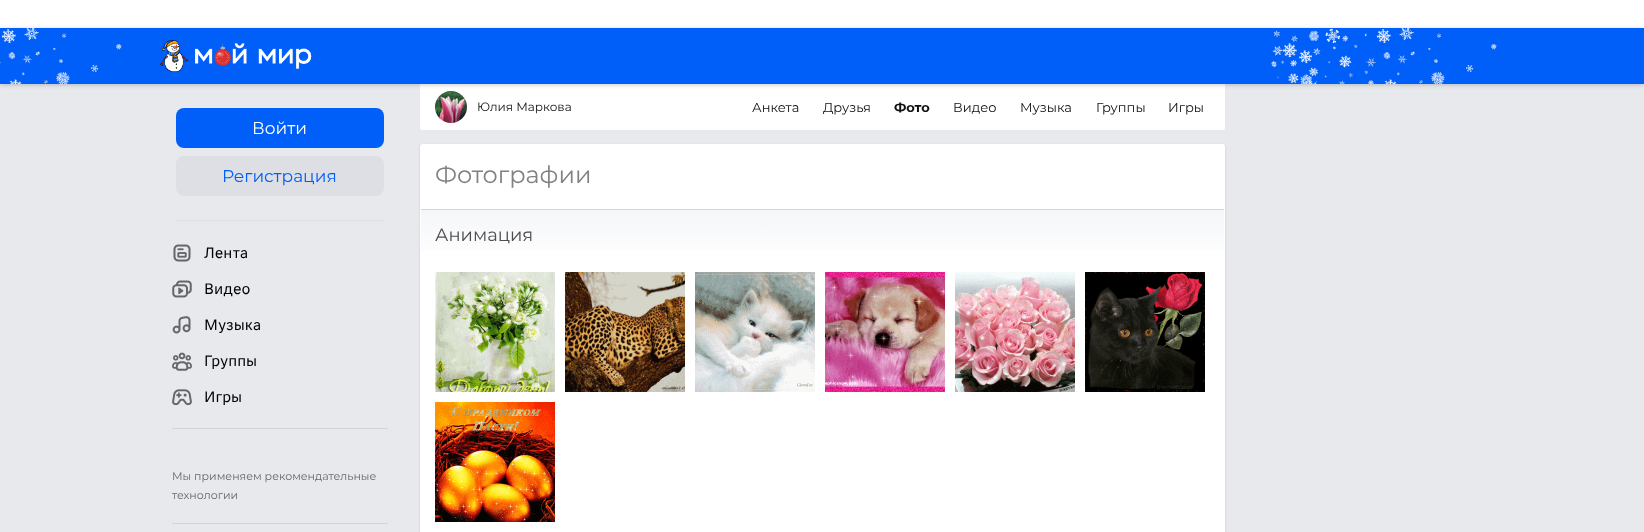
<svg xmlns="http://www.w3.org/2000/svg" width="1644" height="532">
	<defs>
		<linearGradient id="g1" gradientUnits="userSpaceOnUse" x1="823" y1="210" x2="823" y2="265"><stop offset="0" stop-color="#F5F6F8" /><stop offset="1" stop-color="#FFFFFF" /></linearGradient>
	</defs>
	<rect width="100%" height="100%" fill="#E8E9ED" />
	<rect x="0" y="0" width="1644" height="28" fill="#FFFFFF" />
	<path d="M420 84H1225V128C1225 129 1224 130 1223 130H422C421 130 420 129 420 128Z" fill="#FFFFFF" />
	<circle cx="451" cy="107" r="16" fill="#F0F0F0" />
	<image x="435" y="91" width="32" height="32" href="assets/img9.png" />
	<rect x="0" y="29" width="1644" height="56" fill="#000000" fill-opacity="0.2" filter="blur(2px)" />
	<rect x="0" y="28" width="1644" height="56" fill="#015FF9" />
	<image x="0" y="28" width="122" height="56" href="assets/img1.png" />
	<image x="160" y="40" width="152" height="32" href="assets/img2.png" />
	<image x="1271" y="28" width="226" height="56" href="assets/img3.png" />
	<rect x="176" y="108" width="208" height="40" rx="8" fill="#015FF9" />
	<text x="252" y="134" font-family="Montserrat" font-size="17" fill="#FFFFFF">Войти</text>
	<rect x="176" y="156" width="208" height="40" rx="8" fill="#DDDFE4" />
	<text x="222" y="182" font-family="Montserrat" font-size="17" fill="#015FF9">Регистрация</text>
	<rect x="176" y="220" width="208" height="1" fill="#DDDEE3" />
	<image x="173" y="244" width="18" height="18" href="assets/img4.png" />
	<text x="204" y="258" font-family="'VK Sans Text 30'" font-size="15" fill="#000000">Лента</text>
	<image x="172" y="280" width="20" height="18" href="assets/img5.png" />
	<text x="204" y="294" font-family="'VK Sans Text 30'" font-size="15" fill="#000000">Видео</text>
	<image x="172" y="316" width="19" height="18" href="assets/img6.png" />
	<text x="204" y="330" font-family="'VK Sans Text 30'" font-size="15" fill="#000000">Музыка</text>
	<image x="172" y="352" width="20" height="19" href="assets/img7.png" />
	<text x="204" y="366" font-family="'VK Sans Text 30'" font-size="15" fill="#000000">Группы</text>
	<image x="172" y="389" width="20" height="17" href="assets/img8.png" />
	<text x="204" y="402" font-family="'VK Sans Text 30'" font-size="15" fill="#000000">Игры</text>
	<rect x="172" y="428" width="216" height="1" fill="#D2D3DA" />
	<g font-family="Montserrat" font-size="11" fill="#666768">
		<text x="172" y="480">Мы применяем рекомендательные</text>
		<text x="172" y="499">технологии</text>
	</g>
	<rect x="172" y="523" width="216" height="1" fill="#D2D3DA" />
	<rect x="420" y="145" width="805" height="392" rx="2" fill="#000000" fill-opacity="0.12" filter="blur(1px)" />
	<rect x="420" y="144" width="805" height="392" rx="2" fill="#000000" fill-opacity="0.15" filter="blur(0.5px)" />
	<rect x="420" y="144" width="805" height="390" rx="2" fill="#FFFFFF" />
	<text x="477" y="111" font-family="Montserrat" font-size="12" fill="#111111">Юлия Маркова</text>
	<g font-family="Montserrat" font-size="13" fill="#111111">
		<text x="752" y="112">Анкета</text>
		<text x="823" y="112">Друзья</text>
	</g>
	<text x="894" y="112" font-family="Montserrat" font-size="13" font-weight="700" fill="#111111">Фото</text>
	<g font-family="Montserrat" font-size="13" fill="#111111">
		<text x="953" y="112">Видео</text>
		<text x="1020" y="112">Музыка</text>
		<text x="1096" y="112">Группы</text>
		<text x="1168" y="112">Игры</text>
	</g>
	<text x="435" y="183" font-family="Montserrat" font-size="24" fill="#818181">Фотографии</text>
	<rect x="421" y="210" width="803" height="41" fill="url(#g1)" />
	<rect x="421" y="209" width="803" height="1" fill="#D2D5D9" />
	<text x="435" y="241" font-family="Montserrat" font-size="18" fill="#4D4D4D">Анимация</text>
	<image x="435" y="272" width="120" height="120" href="assets/img10.png" />
	<image x="565" y="272" width="120" height="120" href="assets/img11.png" />
	<image x="695" y="272" width="120" height="120" href="assets/img12.png" />
	<image x="825" y="272" width="120" height="120" href="assets/img13.png" />
	<image x="955" y="272" width="120" height="120" href="assets/img14.png" />
	<image x="1085" y="272" width="120" height="120" href="assets/img15.png" />
	<image x="435" y="402" width="120" height="120" href="assets/img16.png" />
</svg>
